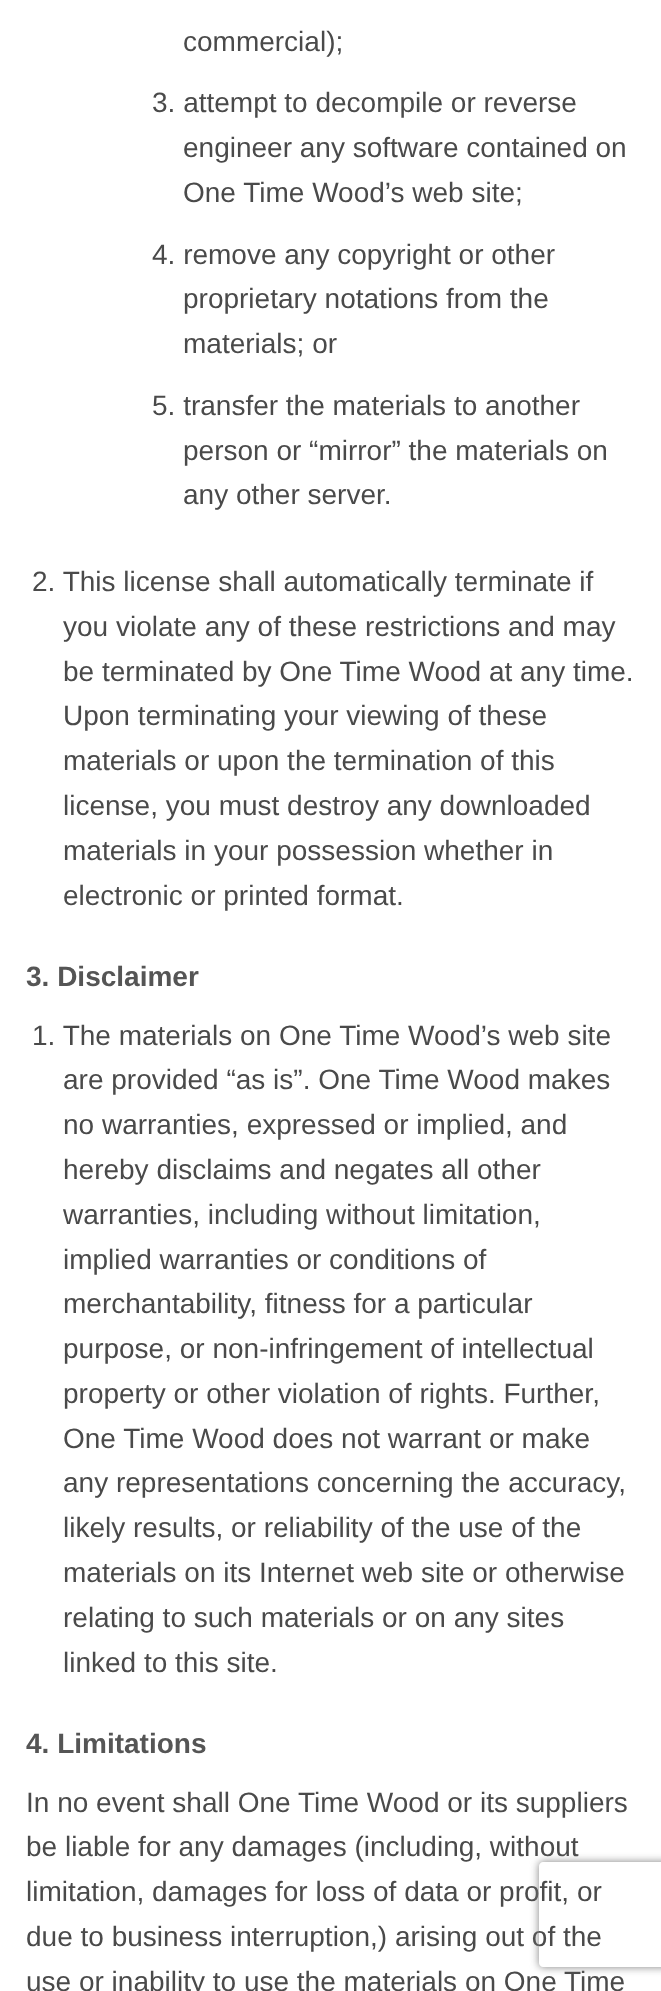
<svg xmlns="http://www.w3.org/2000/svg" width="661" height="1991">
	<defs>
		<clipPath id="clip1"><path d="M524 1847H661V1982H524ZM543 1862H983C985 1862 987 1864 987 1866V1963C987 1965 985 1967 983 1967H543C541 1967 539 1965 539 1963V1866C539 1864 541 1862 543 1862Z" clip-rule="evenodd" /></clipPath>
	</defs>
	<rect width="100%" height="100%" fill="#FFFFFF" />
	<g font-family="Liberation Sans" font-size="28" fill="#4A4A4A">
		<text x="183" y="51">commercial);</text>
		<text x="152" y="112">3. attempt to decompile or reverse</text>
		<text x="183" y="157">engineer any software contained on</text>
		<text x="183" y="202">One Time Wood’s web site;</text>
		<text x="152" y="264">4. remove any copyright or other</text>
		<text x="183" y="308">proprietary notations from the</text>
		<text x="183" y="353">materials; or</text>
		<text x="152" y="415">5. transfer the materials to another</text>
		<text x="183" y="460">person or “mirror” the materials on</text>
		<text x="183" y="504">any other server.</text>
		<text x="32" y="591">2. This license shall automatically terminate if</text>
		<text x="63" y="636">you violate any of these restrictions and may</text>
		<text x="63" y="681">be terminated by One Time Wood at any time.</text>
		<text x="63" y="725">Upon terminating your viewing of these</text>
		<text x="63" y="770">materials or upon the termination of this</text>
		<text x="63" y="815">license, you must destroy any downloaded</text>
		<text x="63" y="860">materials in your possession whether in</text>
		<text x="63" y="905">electronic or printed format.</text>
	</g>
	<text x="26" y="986" font-family="Liberation Sans" font-size="28" font-weight="700" fill="#555555">3. Disclaimer</text>
	<g font-family="Liberation Sans" font-size="28" fill="#4A4A4A">
		<text x="32" y="1045">1. The materials on One Time Wood’s web site</text>
		<text x="63" y="1089">are provided “as is”. One Time Wood makes</text>
		<text x="63" y="1134">no warranties, expressed or implied, and</text>
		<text x="63" y="1179">hereby disclaims and negates all other</text>
		<text x="63" y="1224">warranties, including without limitation,</text>
		<text x="63" y="1269">implied warranties or conditions of</text>
		<text x="63" y="1313">merchantability, fitness for a particular</text>
		<text x="63" y="1358">purpose, or non-infringement of intellectual</text>
		<text x="63" y="1403">property or other violation of rights. Further,</text>
		<text x="63" y="1448">One Time Wood does not warrant or make</text>
		<text x="63" y="1492">any representations concerning the accuracy,</text>
		<text x="63" y="1537">likely results, or reliability of the use of the</text>
		<text x="63" y="1582">materials on its Internet web site or otherwise</text>
		<text x="63" y="1627">relating to such materials or on any sites</text>
		<text x="63" y="1672">linked to this site.</text>
	</g>
	<text x="26" y="1753" font-family="Liberation Sans" font-size="28" font-weight="700" fill="#555555">4. Limitations</text>
	<g font-family="Liberation Sans" font-size="28" fill="#4A4A4A">
		<text x="26" y="1812">In no event shall One Time Wood or its suppliers</text>
		<text x="26" y="1856">be liable for any damages (including, without</text>
		<text x="26" y="1901">limitation, damages for loss of data or profit, or</text>
		<text x="26" y="1946">due to business interruption,) arising out of the</text>
		<text x="26" y="1991">use or inability to use the materials on One Time</text>
	</g>
	<g clip-path="url(#clip1)">
		<rect x="539" y="1862" width="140" height="105" rx="4" fill="#808080" filter="blur(4.5px)" />
	</g>
</svg>
